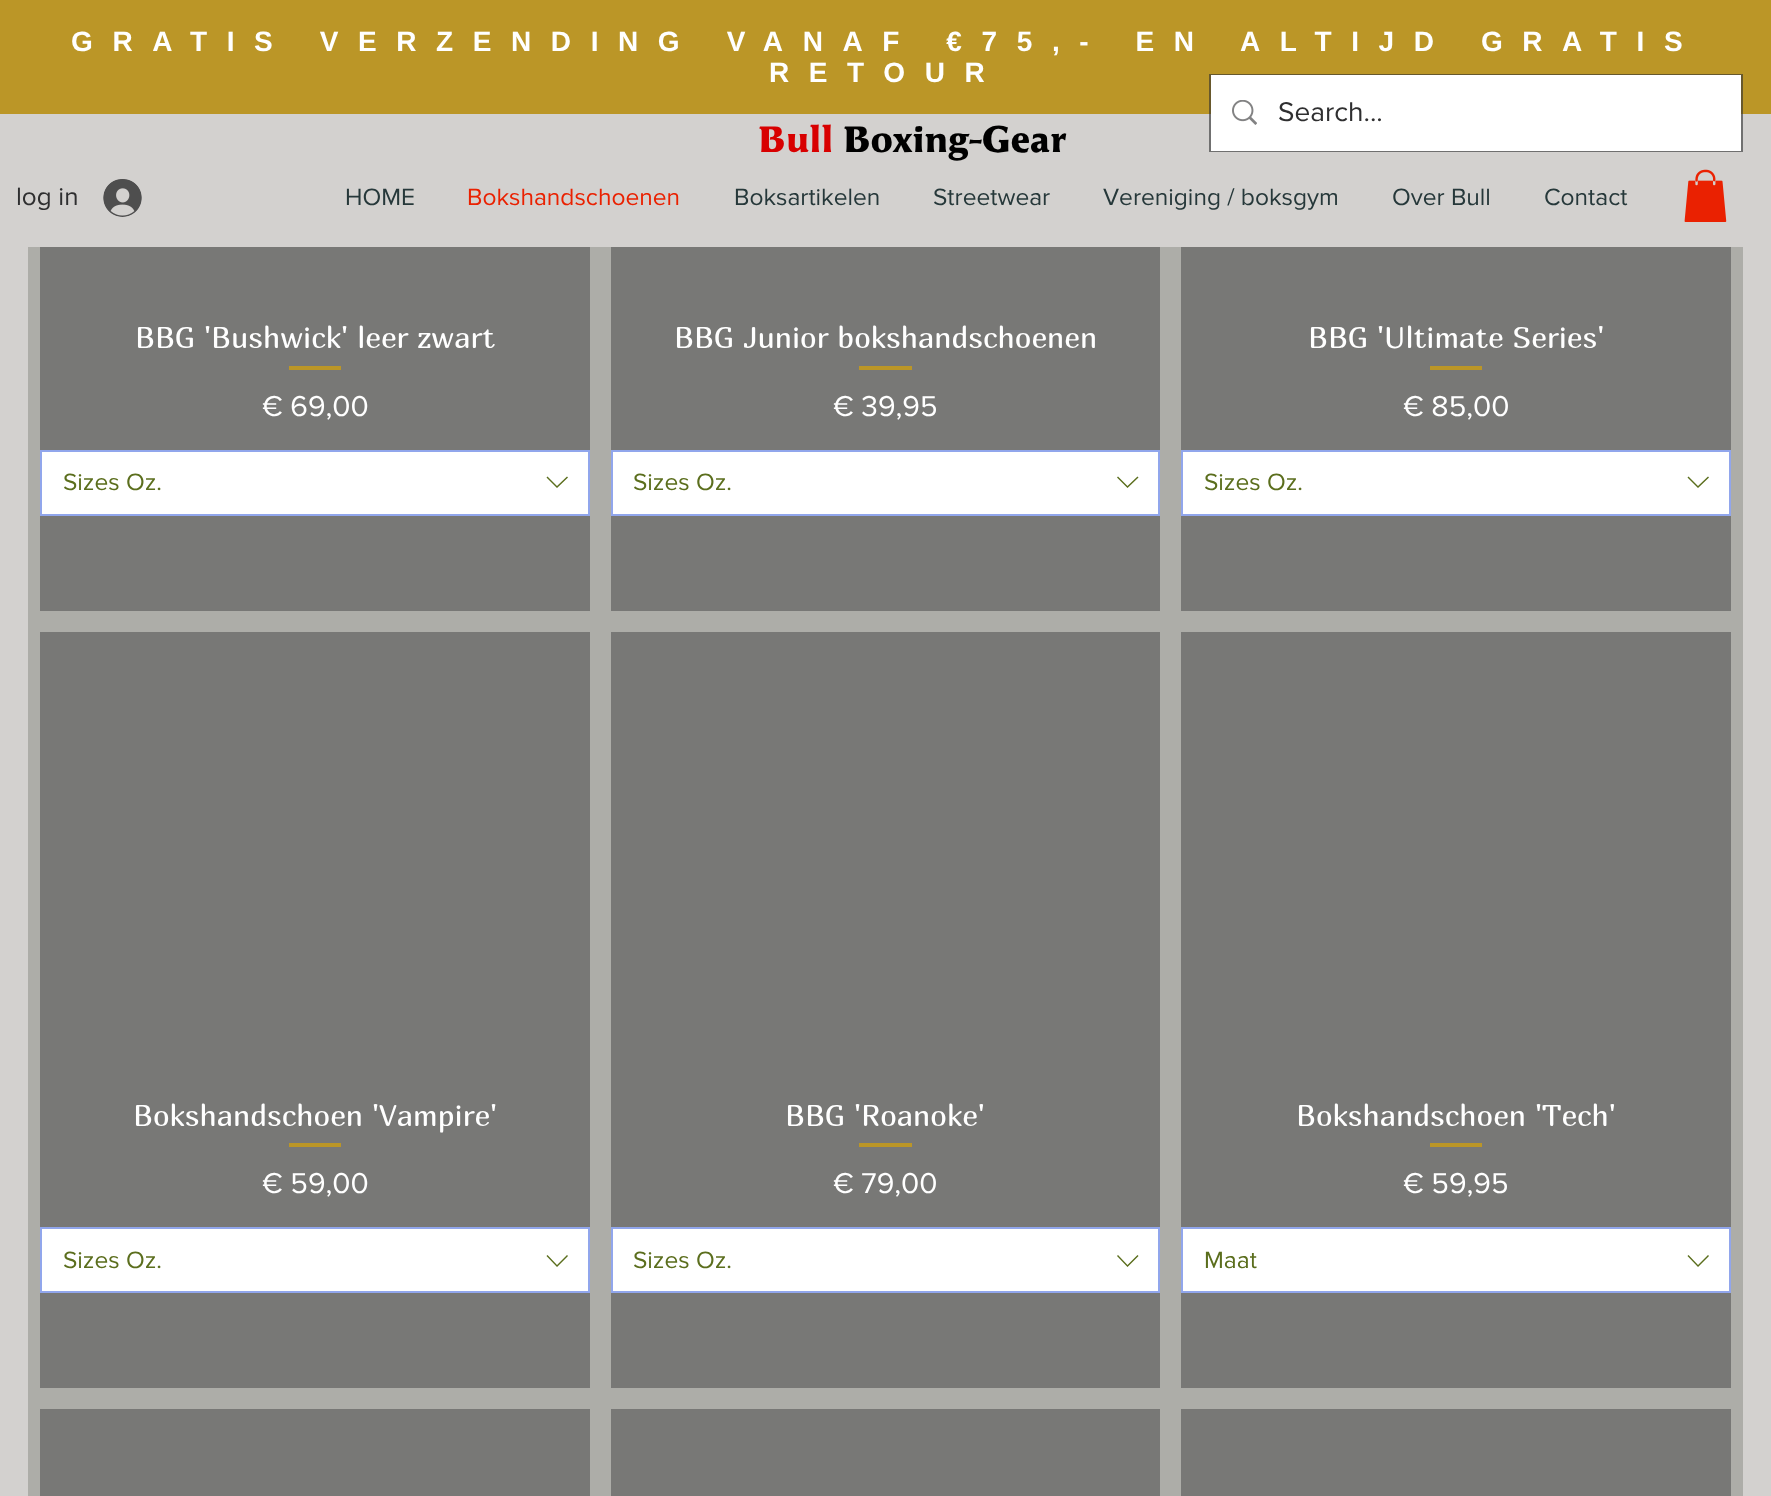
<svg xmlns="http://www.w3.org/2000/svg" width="1771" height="1496">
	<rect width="100%" height="100%" fill="#D3D1CF" />
	<rect x="0" y="0" width="1771" height="114" fill="#BB9627" />
	<g font-family="Liberation Sans" font-size="28" font-weight="700" letter-spacing="19.6" fill="#FFFFFF">
		<text x="71" y="51">GRATIS VERZENDING VANAF €75,- EN ALTIJD GRATIS</text>
		<text x="769" y="82">RETOUR</text>
	</g>
	<rect x="1210" y="75" width="532" height="76" fill="none" stroke="#2F2F30" stroke-opacity="0.6" stroke-width="2" />
	<rect x="1211" y="75" width="530" height="76" fill="#FFFFFF" />
	<image x="1232" y="100" width="25" height="25" href="assets/img1.png" />
	<text x="1278" y="121" font-family="'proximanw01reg'" font-size="28" fill="#2F2F30">Search...</text>
	<text x="758" y="152" font-family="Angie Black" font-size="36.75" font-weight="900" fill="#D80000">Bull</text>
	<text x="843" y="152" font-family="Angie Black" font-size="36.75" font-weight="900" fill="#000000">Boxing-Gear</text>
	<text x="16" y="205" font-family="'proximanw01reg'" font-size="26" fill="#2F2F30">log in</text>
	<image x="103" y="179" width="39" height="38" href="assets/img2.png" />
	<text x="345" y="205" font-family="'proximanw01reg'" font-size="24.5" fill="#26383A">HOME</text>
	<text x="467" y="205" font-family="'proximanw01reg'" font-size="24.5" fill="#EA2101">Bokshandschoenen</text>
	<g font-family="'proximanw01reg'" font-size="24.5" fill="#26383A">
		<text x="734" y="205">Boksartikelen</text>
		<text x="933" y="205">Streetwear</text>
		<text x="1103" y="205">Vereniging / boksgym</text>
		<text x="1392" y="205">Over Bull</text>
		<text x="1544" y="205">Contact</text>
	</g>
	<image x="1684" y="169" width="43" height="53" href="assets/img3.png" />
	<rect x="28" y="247" width="1715" height="1249" fill="#ADADA8" />
	<rect x="40" y="247" width="550" height="364" fill="#787876" />
	<text x="135" y="348" font-family="Marmelad" font-size="29.75" fill="#FFFFFF">BBG 'Bushwick' leer zwart</text>
	<rect x="289" y="366" width="52" height="4" fill="#BB9627" />
	<text x="262" y="416" font-family="'proximanw01reg'" font-size="29.75" fill="#FFFFFF">€ 69,00</text>
	<rect x="41" y="451" width="548" height="64" fill="#FFFFFF" stroke="#91A6EC" stroke-width="2" />
	<text x="63" y="490" font-family="'proximanw01reg'" font-size="24.5" fill="#5B6E1D">Sizes Oz.</text>
	<path d="M567 476.5L568 477.5L557 488L546.5 477.5L547.5 476.5L557 486Z" fill="#5B6E1D" fill-rule="evenodd" />
	<rect x="611" y="247" width="549" height="364" fill="#787876" />
	<text x="674" y="348" font-family="Marmelad" font-size="29.75" fill="#FFFFFF">BBG Junior bokshandschoenen</text>
	<rect x="859" y="366" width="53" height="4" fill="#BB9627" />
	<text x="833" y="416" font-family="'proximanw01reg'" font-size="29.75" fill="#FFFFFF">€ 39,95</text>
	<rect x="612" y="451" width="547" height="64" fill="#FFFFFF" stroke="#91A6EC" stroke-width="2" />
	<text x="633" y="490" font-family="'proximanw01reg'" font-size="24.5" fill="#5B6E1D">Sizes Oz.</text>
	<path d="M1137.5 476.5L1138.5 477.5L1127.5 488L1117 477.5L1118 476.5L1127.5 486Z" fill="#5B6E1D" fill-rule="evenodd" />
	<rect x="1181" y="247" width="550" height="364" fill="#787876" />
	<text x="1308" y="348" font-family="Marmelad" font-size="29.75" fill="#FFFFFF">BBG 'Ultimate Series'</text>
	<rect x="1430" y="366" width="52" height="4" fill="#BB9627" />
	<text x="1403" y="416" font-family="'proximanw01reg'" font-size="29.75" fill="#FFFFFF">€ 85,00</text>
	<rect x="1182" y="451" width="548" height="64" fill="#FFFFFF" stroke="#91A6EC" stroke-width="2" />
	<text x="1204" y="490" font-family="'proximanw01reg'" font-size="24.5" fill="#5B6E1D">Sizes Oz.</text>
	<path d="M1708 476.5L1709 477.5L1698 488L1687.5 477.5L1688.5 476.5L1698 486Z" fill="#5B6E1D" fill-rule="evenodd" />
	<rect x="40" y="632" width="550" height="756" fill="#787876" />
	<text x="133" y="1126" font-family="Marmelad" font-size="29.75" fill="#FFFFFF">Bokshandschoen 'Vampire'</text>
	<rect x="289" y="1143" width="52" height="4" fill="#BB9627" />
	<text x="262" y="1193" font-family="'proximanw01reg'" font-size="29.75" fill="#FFFFFF">€ 59,00</text>
	<rect x="41" y="1228" width="548" height="64" fill="#FFFFFF" stroke="#91A6EC" stroke-width="2" />
	<text x="63" y="1268" font-family="'proximanw01reg'" font-size="24.5" fill="#5B6E1D">Sizes Oz.</text>
	<path d="M567 1255L568 1256L557 1267L546.5 1256L547.5 1255L557 1265Z" fill="#5B6E1D" fill-rule="evenodd" />
	<rect x="611" y="632" width="549" height="756" fill="#787876" />
	<text x="785" y="1126" font-family="Marmelad" font-size="29.75" fill="#FFFFFF">BBG 'Roanoke'</text>
	<rect x="859" y="1143" width="53" height="4" fill="#BB9627" />
	<text x="833" y="1193" font-family="'proximanw01reg'" font-size="29.75" fill="#FFFFFF">€ 79,00</text>
	<rect x="612" y="1228" width="547" height="64" fill="#FFFFFF" stroke="#91A6EC" stroke-width="2" />
	<text x="633" y="1268" font-family="'proximanw01reg'" font-size="24.5" fill="#5B6E1D">Sizes Oz.</text>
	<path d="M1137.5 1255L1138.5 1256L1127.5 1267L1117 1256L1118 1255L1127.5 1265Z" fill="#5B6E1D" fill-rule="evenodd" />
	<rect x="1181" y="632" width="550" height="756" fill="#787876" />
	<text x="1296" y="1126" font-family="Marmelad" font-size="29.75" fill="#FFFFFF">Bokshandschoen 'Tech'</text>
	<rect x="1430" y="1143" width="52" height="4" fill="#BB9627" />
	<text x="1403" y="1193" font-family="'proximanw01reg'" font-size="29.75" fill="#FFFFFF">€ 59,95</text>
	<rect x="1182" y="1228" width="548" height="64" fill="#FFFFFF" stroke="#91A6EC" stroke-width="2" />
	<text x="1204" y="1268" font-family="'proximanw01reg'" font-size="24.5" fill="#5B6E1D">Maat</text>
	<path d="M1708 1255L1709 1256L1698 1267L1687.5 1256L1688.5 1255L1698 1265Z" fill="#5B6E1D" fill-rule="evenodd" />
	<rect x="40" y="1409" width="550" height="87" fill="#787876" />
	<rect x="611" y="1409" width="549" height="87" fill="#787876" />
	<rect x="1181" y="1409" width="550" height="87" fill="#787876" />
</svg>
